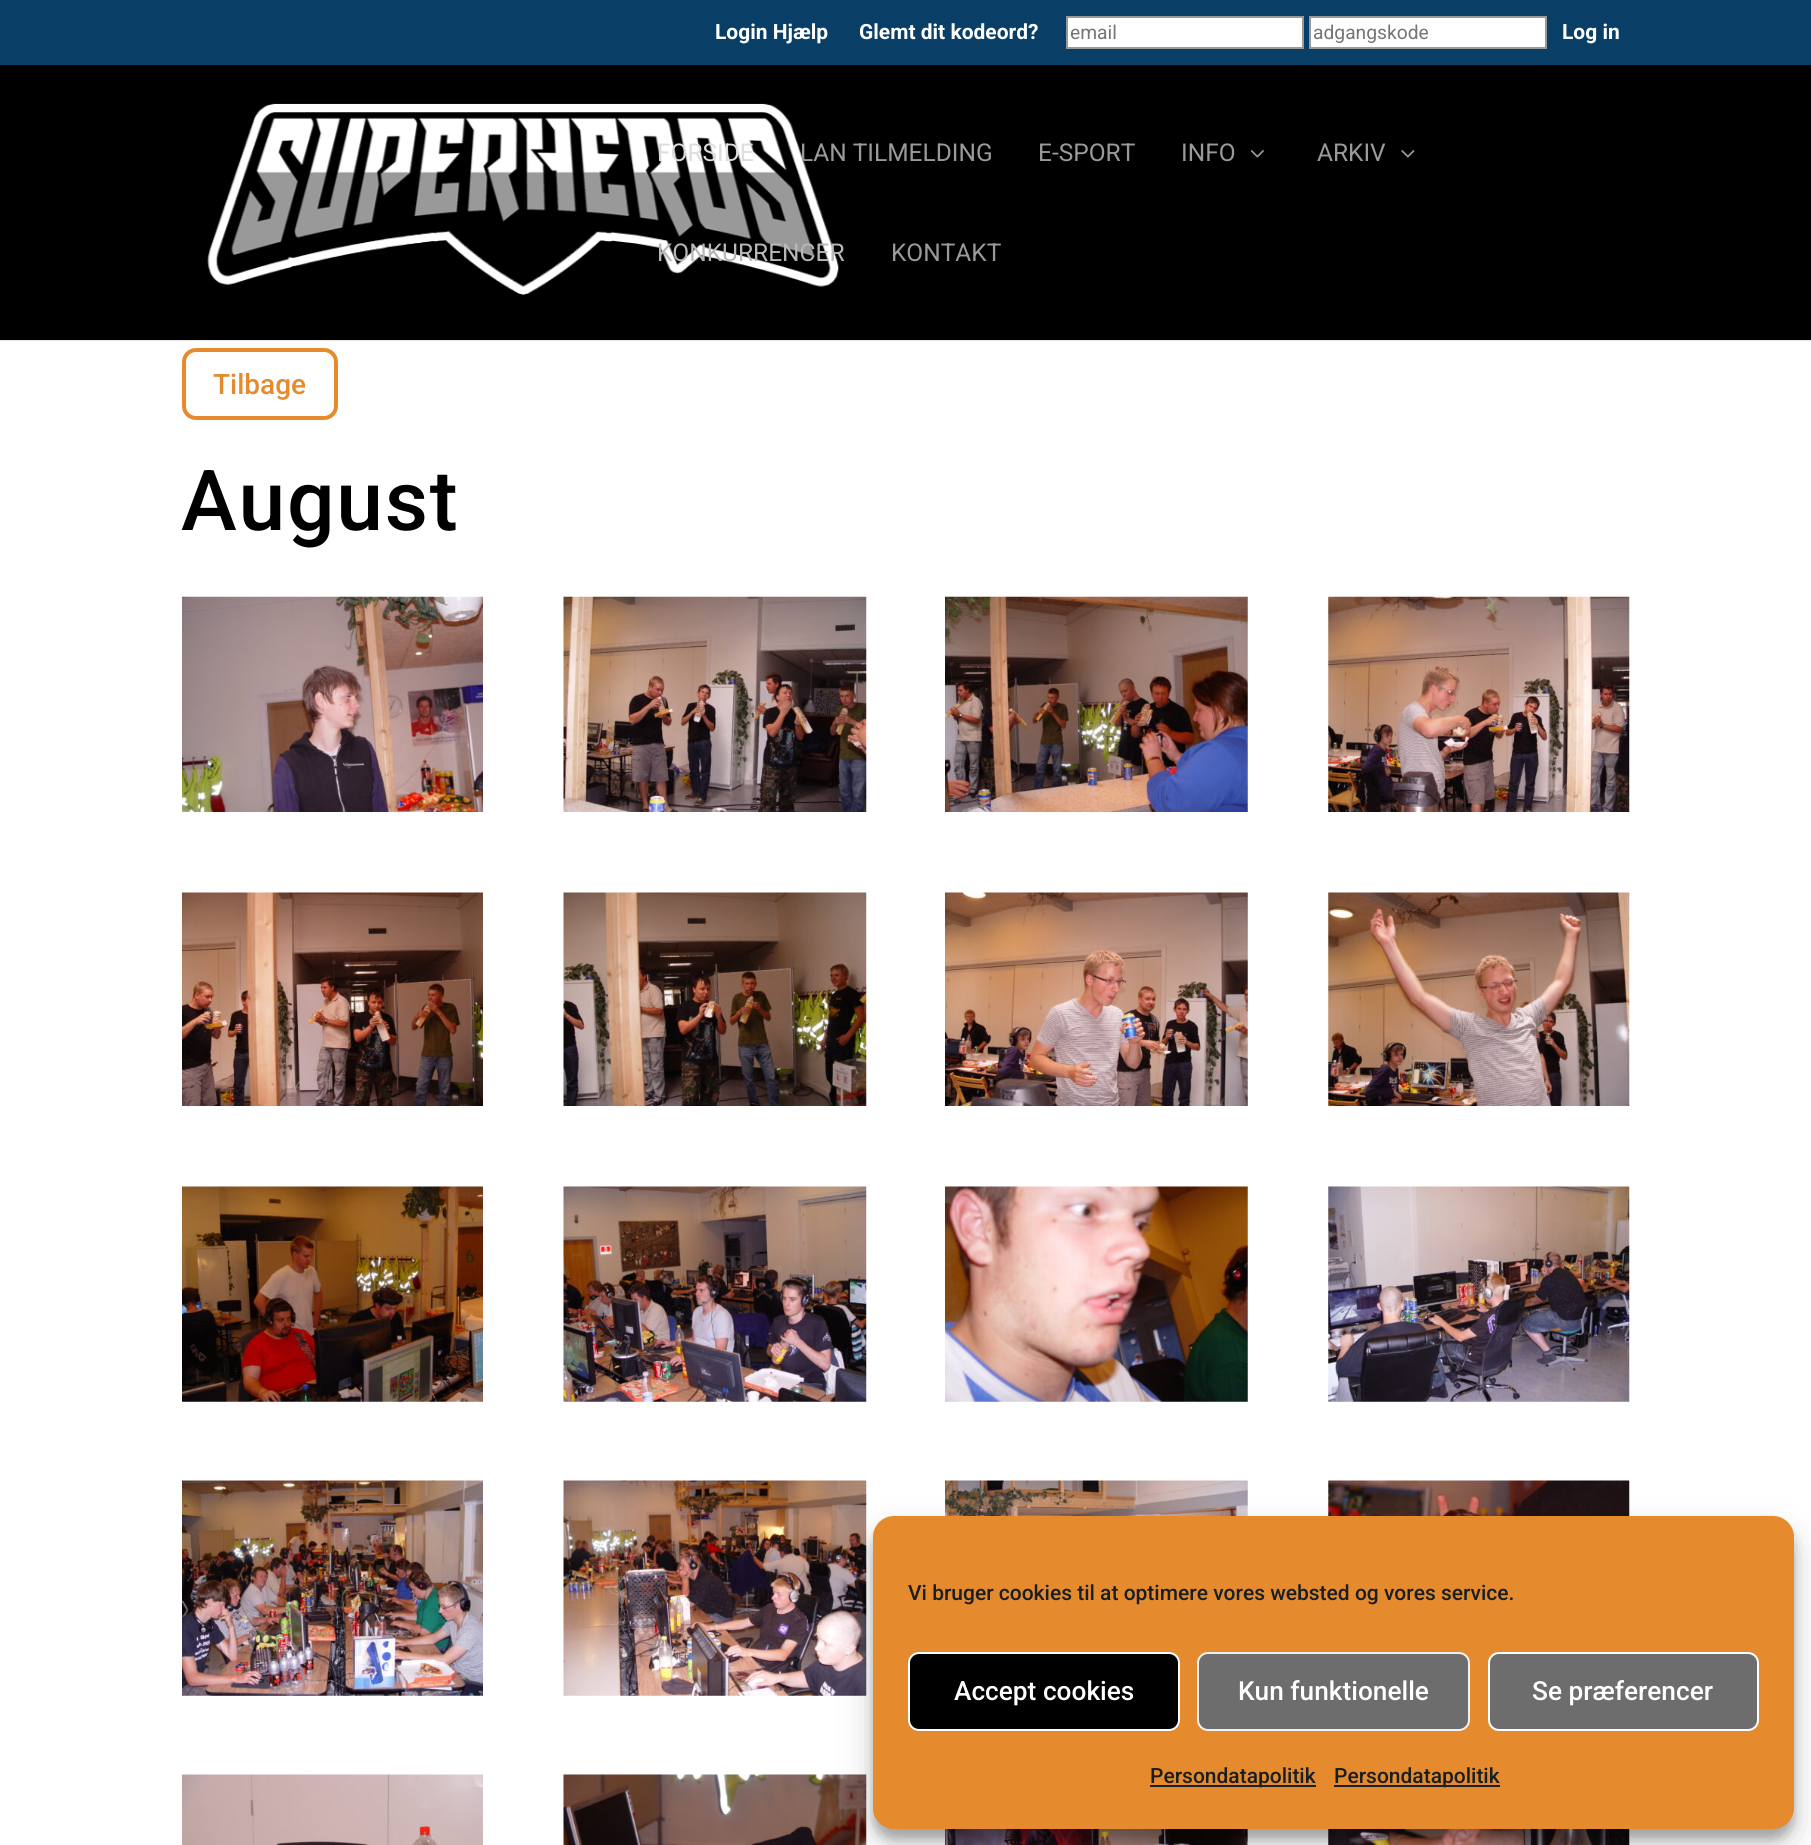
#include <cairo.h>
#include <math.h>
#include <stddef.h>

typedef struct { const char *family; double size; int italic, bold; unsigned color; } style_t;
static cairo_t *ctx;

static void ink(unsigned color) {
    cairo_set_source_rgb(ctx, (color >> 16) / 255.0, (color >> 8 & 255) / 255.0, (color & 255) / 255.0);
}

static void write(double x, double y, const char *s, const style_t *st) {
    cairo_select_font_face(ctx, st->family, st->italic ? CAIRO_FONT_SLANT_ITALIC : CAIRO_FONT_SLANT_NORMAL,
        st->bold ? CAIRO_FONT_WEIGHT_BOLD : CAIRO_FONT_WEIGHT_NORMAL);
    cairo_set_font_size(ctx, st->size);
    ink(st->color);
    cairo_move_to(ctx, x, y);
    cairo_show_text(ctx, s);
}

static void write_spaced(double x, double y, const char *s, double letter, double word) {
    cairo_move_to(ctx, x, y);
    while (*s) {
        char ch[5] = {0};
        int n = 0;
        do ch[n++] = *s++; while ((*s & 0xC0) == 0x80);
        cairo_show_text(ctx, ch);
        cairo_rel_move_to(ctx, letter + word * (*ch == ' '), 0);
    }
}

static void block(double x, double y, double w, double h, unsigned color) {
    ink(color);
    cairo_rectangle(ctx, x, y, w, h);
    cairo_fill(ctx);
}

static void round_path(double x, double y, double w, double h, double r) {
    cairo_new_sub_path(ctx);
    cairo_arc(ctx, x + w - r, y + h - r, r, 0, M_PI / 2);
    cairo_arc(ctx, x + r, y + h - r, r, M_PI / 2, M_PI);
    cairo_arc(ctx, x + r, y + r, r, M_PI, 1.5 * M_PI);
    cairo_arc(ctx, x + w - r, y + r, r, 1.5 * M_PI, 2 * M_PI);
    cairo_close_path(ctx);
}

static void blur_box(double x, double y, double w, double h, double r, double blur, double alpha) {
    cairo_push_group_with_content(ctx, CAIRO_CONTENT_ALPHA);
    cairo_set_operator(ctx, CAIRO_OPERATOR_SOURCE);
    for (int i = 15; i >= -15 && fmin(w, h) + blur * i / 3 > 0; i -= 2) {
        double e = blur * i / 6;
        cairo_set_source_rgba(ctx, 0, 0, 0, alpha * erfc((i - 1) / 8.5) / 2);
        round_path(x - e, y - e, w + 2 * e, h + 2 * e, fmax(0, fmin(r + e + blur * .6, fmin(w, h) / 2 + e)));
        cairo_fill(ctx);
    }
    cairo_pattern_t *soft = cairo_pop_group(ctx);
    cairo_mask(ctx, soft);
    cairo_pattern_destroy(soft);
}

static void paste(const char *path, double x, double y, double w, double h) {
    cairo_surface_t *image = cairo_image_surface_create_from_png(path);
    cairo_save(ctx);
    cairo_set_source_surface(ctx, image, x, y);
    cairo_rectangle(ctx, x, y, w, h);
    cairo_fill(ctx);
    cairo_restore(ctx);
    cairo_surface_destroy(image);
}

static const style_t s1 = {"Roboto", 21, 0, 1, 0xffffff};
static const style_t s2 = {"Roboto", 19.25, 0, 0, 0x757575};
static const style_t s3 = {"Roboto", 24.5, 0, 0, 0xdddddd};
static const style_t s4 = {"Roboto", 24.5, 0, 0, 0x9a9a9a};
static const style_t s5 = {"Roboto", 24.5, 0, 0, 0xb8b8b8};
static const style_t s6 = {"Roboto Medium", 28, 0, 0, 0xe58b2d};
static const style_t s7 = {"Roboto Medium", 21, 0, 0, 0x191e23};
static const style_t s8 = {"Roboto Medium", 26.25, 0, 0, 0xffffff};

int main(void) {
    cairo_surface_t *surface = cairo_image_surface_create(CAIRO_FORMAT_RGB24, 1811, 1845);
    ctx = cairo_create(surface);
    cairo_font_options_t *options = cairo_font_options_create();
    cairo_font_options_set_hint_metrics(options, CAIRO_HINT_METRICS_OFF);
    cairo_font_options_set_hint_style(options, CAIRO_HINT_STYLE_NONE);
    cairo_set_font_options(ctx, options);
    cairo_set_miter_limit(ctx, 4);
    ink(0xffffff);
    cairo_paint(ctx);
    block(0, 0, 1811, 65, 0x093f66);
    write(715, 39, "Login Hjælp", &s1);
    write(859, 39, "Glemt dit kodeord?", &s1);
    cairo_rectangle(ctx, 1067, 17, 236, 31);
    cairo_fill_preserve(ctx);
    ink(0x999999);
    cairo_stroke(ctx);
    write(1070, 39, "email", &s2);
    ink(0xffffff);
    cairo_rectangle(ctx, 1310, 17, 236, 31);
    cairo_fill_preserve(ctx);
    ink(0x999999);
    cairo_stroke(ctx);
    write(1313, 39, "adgangskode", &s2);
    write(1562, 39, "Log in", &s1);
    block(0, 340, 1811, 1, 0xe6e6e6);
    block(0, 65, 1811, 275, 0x000000);
    paste("pic1.png", 207, 103, 633, 192);
    write(657, 161, "FORSIDE", &s3);
    write(800, 161, "LAN TILMELDING", &s4);
    write(1038, 161, "E-SPORT", &s4);
    write(1181, 161, "INFO", &s4);
    paste("pic2.png", 1250, 150, 14, 8);
    write(1317, 161, "ARKIV", &s4);
    paste("pic3.png", 1401, 150, 14, 8);
    write(657, 261, "KONKURRENCER", &s5);
    write(891, 261, "KONTAKT", &s4);
    round_path(184, 350, 152, 68, 12);
    ink(0xe58b2d);
    cairo_set_line_width(ctx, 4);
    cairo_stroke(ctx);
    write(213, 394, "Tilbage", &s6);
    cairo_set_font_size(ctx, 84);
    ink(0x000000);
    write_spaced(181, 530, "August", 1.75, 0);
    paste("pic4.png", 182, 596, 301, 216);
    paste("pic5.png", 563, 596, 304, 216);
    paste("pic6.png", 945, 596, 303, 216);
    paste("pic7.png", 1328, 596, 302, 216);
    paste("pic8.png", 182, 892, 301, 214);
    paste("pic9.png", 563, 892, 304, 214);
    paste("pic10.png", 945, 892, 303, 214);
    paste("pic11.png", 1328, 892, 302, 214);
    paste("pic12.png", 182, 1186, 301, 216);
    paste("pic13.png", 563, 1186, 304, 216);
    paste("pic14.png", 945, 1186, 303, 216);
    paste("pic15.png", 1328, 1186, 302, 216);
    paste("pic16.png", 182, 1480, 301, 216);
    paste("pic17.png", 563, 1480, 304, 216);
    paste("pic18.png", 945, 1480, 303, 36);
    paste("pic19.png", 1328, 1480, 302, 36);
    paste("pic20.png", 182, 1774, 301, 71);
    paste("pic21.png", 563, 1774, 304, 71);
    paste("pic22.png", 945, 1829, 303, 16);
    paste("pic23.png", 1328, 1829, 302, 16);
    ink(0x000000);
    blur_box(873, 1526, 921, 313, 21, 5, 0.23);
    blur_box(873, 1533, 921, 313, 21, 17.5, 0.19);
    ink(0xe58b2d);
    round_path(873, 1516, 921, 313, 21);
    cairo_fill(ctx);
    write(908, 1600, "Vi bruger cookies til at optimere vores websted og vores service.", &s7);
    ink(0x000000);
    round_path(909, 1653, 270, 77, 10);
    cairo_fill_preserve(ctx);
    ink(0xffffff);
    cairo_set_line_width(ctx, 2);
    cairo_stroke(ctx);
    write(954, 1700, "Accept cookies", &s8);
    ink(0x6d6d6d);
    round_path(1198, 1653, 271, 77, 10);
    cairo_fill_preserve(ctx);
    ink(0xf1f1f1);
    cairo_stroke(ctx);
    write(1238, 1700, "Kun funktionelle", &s8);
    ink(0x6d6d6d);
    round_path(1489, 1653, 269, 77, 10);
    cairo_fill_preserve(ctx);
    ink(0xffffff);
    cairo_stroke(ctx);
    write(1532, 1700, "Se præferencer", &s8);
    block(1150, 1785, 166, 2, 0x191e23);
    write(1150, 1783, "Persondatapolitik", &s7);
    block(1334, 1785, 166, 2, 0x191e23);
    write(1334, 1783, "Persondatapolitik", &s7);
    cairo_surface_write_to_png(surface, "screenshot.png");
    cairo_font_options_destroy(options);
    cairo_destroy(ctx);
    cairo_surface_destroy(surface);
    return 0;
}
